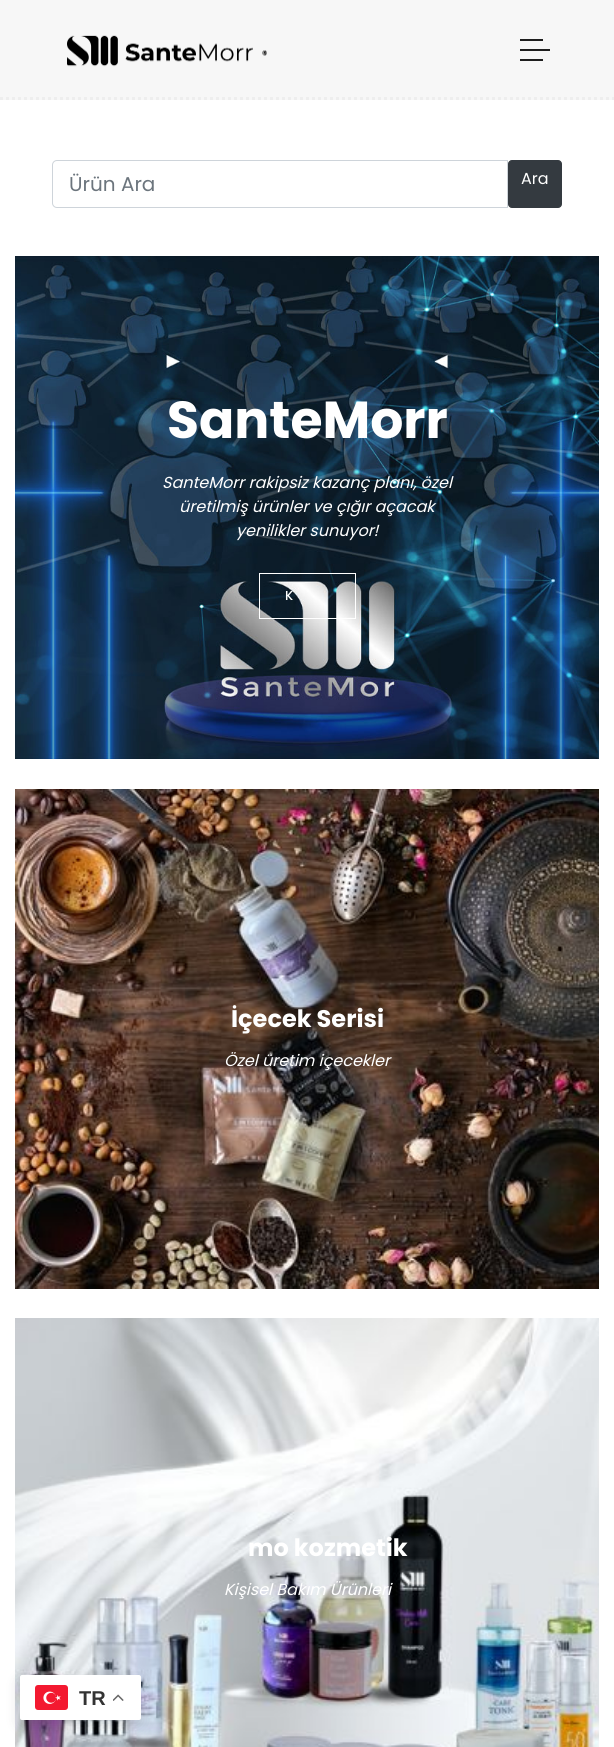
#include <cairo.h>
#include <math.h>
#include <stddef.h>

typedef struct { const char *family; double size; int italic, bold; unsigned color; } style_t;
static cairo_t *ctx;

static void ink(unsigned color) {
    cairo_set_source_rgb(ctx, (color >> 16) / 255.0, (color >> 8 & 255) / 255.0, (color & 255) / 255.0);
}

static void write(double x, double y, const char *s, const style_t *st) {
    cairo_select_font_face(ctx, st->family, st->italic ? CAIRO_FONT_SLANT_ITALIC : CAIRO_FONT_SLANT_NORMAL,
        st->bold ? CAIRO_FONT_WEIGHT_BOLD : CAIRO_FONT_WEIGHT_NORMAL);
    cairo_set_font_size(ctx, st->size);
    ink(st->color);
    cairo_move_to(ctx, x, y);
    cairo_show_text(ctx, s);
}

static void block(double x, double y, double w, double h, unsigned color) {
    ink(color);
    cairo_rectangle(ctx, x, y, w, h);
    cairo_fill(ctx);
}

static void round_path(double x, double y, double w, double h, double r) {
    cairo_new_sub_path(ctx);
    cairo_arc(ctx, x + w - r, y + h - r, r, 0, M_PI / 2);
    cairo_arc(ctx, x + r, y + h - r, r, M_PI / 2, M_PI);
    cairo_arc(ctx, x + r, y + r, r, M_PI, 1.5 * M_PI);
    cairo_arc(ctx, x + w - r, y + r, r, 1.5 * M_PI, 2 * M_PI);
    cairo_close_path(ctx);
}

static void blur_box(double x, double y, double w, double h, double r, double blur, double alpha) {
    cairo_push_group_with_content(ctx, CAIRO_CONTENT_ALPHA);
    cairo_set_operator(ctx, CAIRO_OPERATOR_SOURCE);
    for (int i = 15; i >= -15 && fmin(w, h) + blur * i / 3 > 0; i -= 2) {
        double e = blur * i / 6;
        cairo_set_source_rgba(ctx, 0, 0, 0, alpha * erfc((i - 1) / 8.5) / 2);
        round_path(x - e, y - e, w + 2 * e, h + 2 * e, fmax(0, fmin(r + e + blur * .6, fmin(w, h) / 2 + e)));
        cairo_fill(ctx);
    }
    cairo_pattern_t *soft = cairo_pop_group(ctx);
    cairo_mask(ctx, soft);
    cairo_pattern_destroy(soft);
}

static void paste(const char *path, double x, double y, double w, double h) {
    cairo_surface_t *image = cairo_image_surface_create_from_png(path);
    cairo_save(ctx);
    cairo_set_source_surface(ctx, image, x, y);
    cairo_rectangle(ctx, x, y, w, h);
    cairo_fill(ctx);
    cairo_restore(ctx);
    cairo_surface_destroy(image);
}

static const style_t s1 = {"Poppins", 20, 0, 0, 0x6c757d};
static const style_t s2 = {"Poppins", 16, 0, 0, 0xffffff};
static const style_t s3 = {"Poppins", 52, 0, 1, 0xffffff};
static const style_t s4 = {"Poppins", 16, 1, 0, 0xffffff};
static const style_t s5 = {"Poppins Medium", 13, 0, 0, 0xffffff};
static const style_t s6 = {"Poppins", 24, 0, 1, 0xffffff};
static const style_t s7 = {"Liberation Sans", 20, 0, 1, 0x333333};

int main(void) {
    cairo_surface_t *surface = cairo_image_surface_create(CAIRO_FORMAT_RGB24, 614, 1747);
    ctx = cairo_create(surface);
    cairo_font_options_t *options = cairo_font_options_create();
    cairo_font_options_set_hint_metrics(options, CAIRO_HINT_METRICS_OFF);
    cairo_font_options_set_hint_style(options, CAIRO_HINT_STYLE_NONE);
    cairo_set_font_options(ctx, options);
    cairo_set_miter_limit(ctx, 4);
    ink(0xffffff);
    cairo_paint(ctx);
    block(0, 0, 614, 100, 0xf7f7f7);
    cairo_new_path(ctx);
    cairo_move_to(ctx, 0, 98.5);
    cairo_line_to(ctx, 614, 98.5);
    ink(0xeeeeee);
    cairo_set_line_width(ctx, 3);
    cairo_set_dash(ctx, (double[]){3, 3}, 2, 0);
    cairo_stroke(ctx);
    paste("pic1.png", 67, 35, 200, 32);
    block(520, 49, 30, 2, 0x1e1e1e);
    block(520, 39, 23, 2, 0x1e1e1e);
    block(520, 59, 23, 2, 0x1e1e1e);
    cairo_new_path(ctx);
    cairo_move_to(ctx, 57, 160.5);
    cairo_line_to(ctx, 507.5, 160.5);
    cairo_line_to(ctx, 507.5, 207.5);
    cairo_line_to(ctx, 57, 207.5);
    cairo_curve_to(ctx, 54.5, 207.5, 52.5, 205.5, 52.5, 203);
    cairo_line_to(ctx, 52.5, 165);
    cairo_curve_to(ctx, 52.5, 162.5, 54.5, 160.5, 57, 160.5);
    cairo_close_path(ctx);
    ink(0xced4da);
    cairo_set_line_width(ctx, 1);
    cairo_set_dash(ctx, NULL, 0, 0);
    cairo_stroke(ctx);
    write(69, 191, "Ürün Ara", &s1);
    ink(0x343a40);
    round_path(508.5, 160.5, 53, 47, 3.5);
    cairo_fill_preserve(ctx);
    cairo_stroke(ctx);
    write(521, 184, "Ara", &s2);
    paste("pic2.png", 15, 256, 584, 503);
    write(167, 438, "SanteMorr", &s3);
    write(162, 488, "SanteMorr rakipsiz kazanç planı, özel", &s4);
    write(179, 512, "üretilmiş ürünler ve çığır açacak", &s4);
    write(236, 536, "yenilikler sunuyor!", &s4);
    cairo_rectangle(ctx, 259.5, 573.5, 96, 45);
    cairo_stroke(ctx);
    write(285, 600, "K", &s5);
    paste("pic3.png", 15, 789, 584, 500);
    write(231, 1027, "İçecek Serisi", &s6);
    write(224, 1066, "Özel üretim içecekler", &s4);
    paste("pic4.png", 15, 1318, 584, 429);
    write(248, 1556, "mo kozmetik", &s6);
    write(224, 1595, "Kişisel Bakım Ürünleri", &s4);
    ink(0x000000);
    blur_box(20, 1680, 121, 45, 2, 7.5, 0.15);
    ink(0xffffff);
    round_path(20, 1675, 121, 45, 2);
    cairo_fill(ctx);
    paste("pic5.png", 35, 1685, 33, 25);
    write(79, 1705, "TR", &s7);
    paste("pic6.png", 113, 1694, 11, 7);
    cairo_surface_write_to_png(surface, "screenshot.png");
    cairo_font_options_destroy(options);
    cairo_destroy(ctx);
    cairo_surface_destroy(surface);
    return 0;
}
